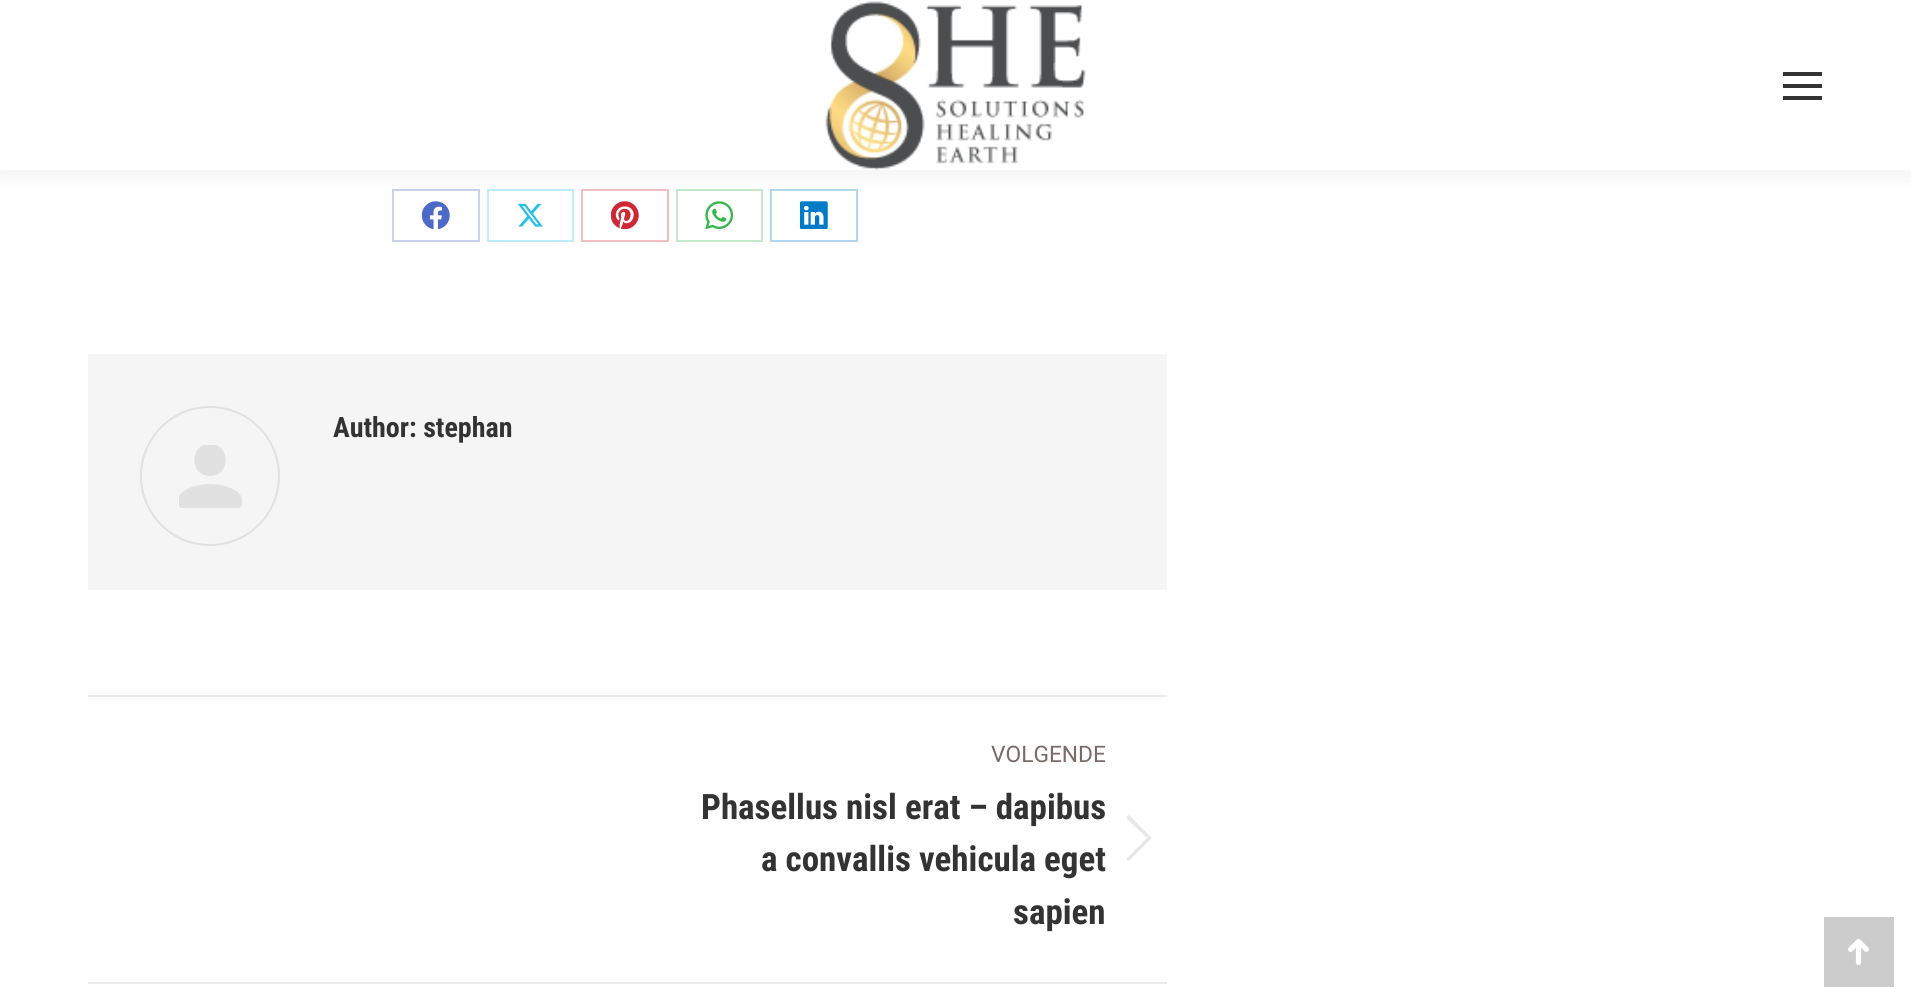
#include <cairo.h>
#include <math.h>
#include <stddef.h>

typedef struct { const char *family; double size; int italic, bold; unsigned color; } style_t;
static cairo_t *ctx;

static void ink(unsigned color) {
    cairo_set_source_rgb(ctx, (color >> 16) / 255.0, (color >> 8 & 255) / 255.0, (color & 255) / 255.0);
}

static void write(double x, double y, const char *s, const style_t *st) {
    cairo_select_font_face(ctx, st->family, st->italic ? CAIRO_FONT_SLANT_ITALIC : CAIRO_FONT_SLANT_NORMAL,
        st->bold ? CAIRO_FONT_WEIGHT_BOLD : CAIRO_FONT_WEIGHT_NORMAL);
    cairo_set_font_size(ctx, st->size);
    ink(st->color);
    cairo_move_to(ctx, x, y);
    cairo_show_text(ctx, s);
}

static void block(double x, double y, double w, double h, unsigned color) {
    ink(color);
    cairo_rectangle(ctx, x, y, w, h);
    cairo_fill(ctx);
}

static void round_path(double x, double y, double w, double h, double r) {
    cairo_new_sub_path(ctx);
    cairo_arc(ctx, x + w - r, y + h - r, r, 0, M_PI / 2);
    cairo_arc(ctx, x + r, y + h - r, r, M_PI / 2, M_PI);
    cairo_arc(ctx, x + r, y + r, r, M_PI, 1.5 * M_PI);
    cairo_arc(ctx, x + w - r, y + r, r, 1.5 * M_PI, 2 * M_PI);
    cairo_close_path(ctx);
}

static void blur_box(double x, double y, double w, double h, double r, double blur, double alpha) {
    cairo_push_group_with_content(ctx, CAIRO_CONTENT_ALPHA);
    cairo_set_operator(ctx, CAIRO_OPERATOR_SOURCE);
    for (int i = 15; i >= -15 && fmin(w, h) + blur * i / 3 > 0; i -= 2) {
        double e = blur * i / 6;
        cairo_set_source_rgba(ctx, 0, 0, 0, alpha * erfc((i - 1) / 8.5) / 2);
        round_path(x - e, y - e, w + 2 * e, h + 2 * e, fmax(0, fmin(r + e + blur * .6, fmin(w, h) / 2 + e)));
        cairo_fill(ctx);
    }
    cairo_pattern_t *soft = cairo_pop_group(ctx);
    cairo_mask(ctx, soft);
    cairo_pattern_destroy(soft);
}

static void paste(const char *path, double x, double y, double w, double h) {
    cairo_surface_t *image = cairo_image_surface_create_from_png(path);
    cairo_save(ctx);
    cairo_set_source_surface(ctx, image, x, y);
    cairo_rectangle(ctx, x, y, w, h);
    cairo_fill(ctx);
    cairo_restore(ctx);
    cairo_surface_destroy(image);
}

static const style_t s1 = {"Roboto Condensed", 28, 0, 1, 0x333333};
static const style_t s2 = {"Roboto", 22.75, 0, 0, 0x7a6a6a};
static const style_t s3 = {"Roboto Condensed", 35, 0, 1, 0x333333};

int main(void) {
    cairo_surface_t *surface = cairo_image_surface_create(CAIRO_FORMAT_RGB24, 1911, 1003);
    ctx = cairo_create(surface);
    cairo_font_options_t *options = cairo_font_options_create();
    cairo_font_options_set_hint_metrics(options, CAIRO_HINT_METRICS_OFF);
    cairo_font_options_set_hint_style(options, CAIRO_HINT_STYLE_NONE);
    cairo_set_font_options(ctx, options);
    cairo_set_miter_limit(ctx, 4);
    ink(0xffffff);
    cairo_paint(ctx);
    cairo_rectangle(ctx, 393, 190, 86, 51);
    ink(0xc9d2ee);
    cairo_stroke(ctx);
    paste("pic2.png", 422, 201, 28, 28);
    cairo_rectangle(ctx, 488, 190, 85, 51);
    ink(0xbfecf9);
    cairo_stroke(ctx);
    paste("pic3.png", 517, 203, 26, 24);
    cairo_rectangle(ctx, 582, 190, 86, 51);
    ink(0xf1bfc2);
    cairo_stroke(ctx);
    paste("pic4.png", 611, 201, 28, 28);
    cairo_rectangle(ctx, 677, 190, 85, 51);
    ink(0xc3e9ca);
    cairo_stroke(ctx);
    paste("pic5.png", 705, 201, 28, 28);
    cairo_rectangle(ctx, 771, 190, 86, 51);
    ink(0xb3d7ee);
    cairo_stroke(ctx);
    paste("pic6.png", 800, 201, 28, 28);
    ink(0x000000);
    blur_box(-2, -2, 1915, 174, 0, 13, 0.07);
    block(0, 0, 1911, 170, 0xffffff);
    paste("pic1.png", 825, 1, 261, 169);
    block(1783, 72, 39, 4, 0x333333);
    block(1783, 84, 39, 4, 0x333333);
    block(1783, 96, 39, 4, 0x333333);
    block(88, 354, 1079, 236, 0xf5f5f5);
    cairo_arc(ctx, 210, 476, 69, 0, 2 * M_PI);
    ink(0xe1e1e1);
    cairo_stroke(ctx);
    cairo_save(ctx);
    cairo_rectangle(ctx, 179, 445, 63, 63);
    cairo_clip(ctx);
    cairo_new_path(ctx);
    cairo_move_to(ctx, 210, 476);
    cairo_curve_to(ctx, 231, 476, 231, 444, 210, 444);
    cairo_curve_to(ctx, 189, 444, 189, 476, 210, 476);
    cairo_close_path(ctx);
    cairo_move_to(ctx, 210, 484);
    cairo_curve_to(ctx, 199, 484, 178, 489, 178, 500);
    cairo_line_to(ctx, 178, 504);
    cairo_curve_to(ctx, 178, 506, 180, 508, 182, 508);
    cairo_line_to(ctx, 238, 508);
    cairo_curve_to(ctx, 240, 508, 242, 506, 242, 504);
    cairo_line_to(ctx, 242, 500);
    cairo_curve_to(ctx, 242, 489, 221, 484, 210, 484);
    cairo_close_path(ctx);
    cairo_fill(ctx);
    cairo_restore(ctx);
    write(333, 437, "Author: stephan", &s1);
    block(88, 695, 1079, 2, 0xebebeb);
    block(88, 982, 1079, 2, 0xebebeb);
    write(991, 762, "VOLGENDE", &s2);
    write(701, 819, "Phasellus nisl erat – dapibus", &s3);
    write(761, 871, "a convallis vehicula eget", &s3);
    write(1013, 924, "sapien", &s3);
    ink(0xe7e7e7);
    cairo_new_path(ctx);
    cairo_move_to(ctx, 1127, 816);
    cairo_curve_to(ctx, 1128, 815, 1129, 815, 1130, 816);
    cairo_line_to(ctx, 1151, 837);
    cairo_curve_to(ctx, 1152, 838, 1152, 839, 1151, 839);
    cairo_line_to(ctx, 1130, 860);
    cairo_curve_to(ctx, 1129, 861, 1128, 861, 1127, 860);
    cairo_curve_to(ctx, 1127, 860, 1127, 859, 1127, 858);
    cairo_line_to(ctx, 1147, 838);
    cairo_line_to(ctx, 1127, 819);
    cairo_close_path(ctx);
    cairo_fill(ctx);
    block(1824, 917, 70, 70, 0xcccccc);
    paste("pic7.png", 1848, 938, 21, 28);
    cairo_surface_write_to_png(surface, "screenshot.png");
    cairo_font_options_destroy(options);
    cairo_destroy(ctx);
    cairo_surface_destroy(surface);
    return 0;
}
